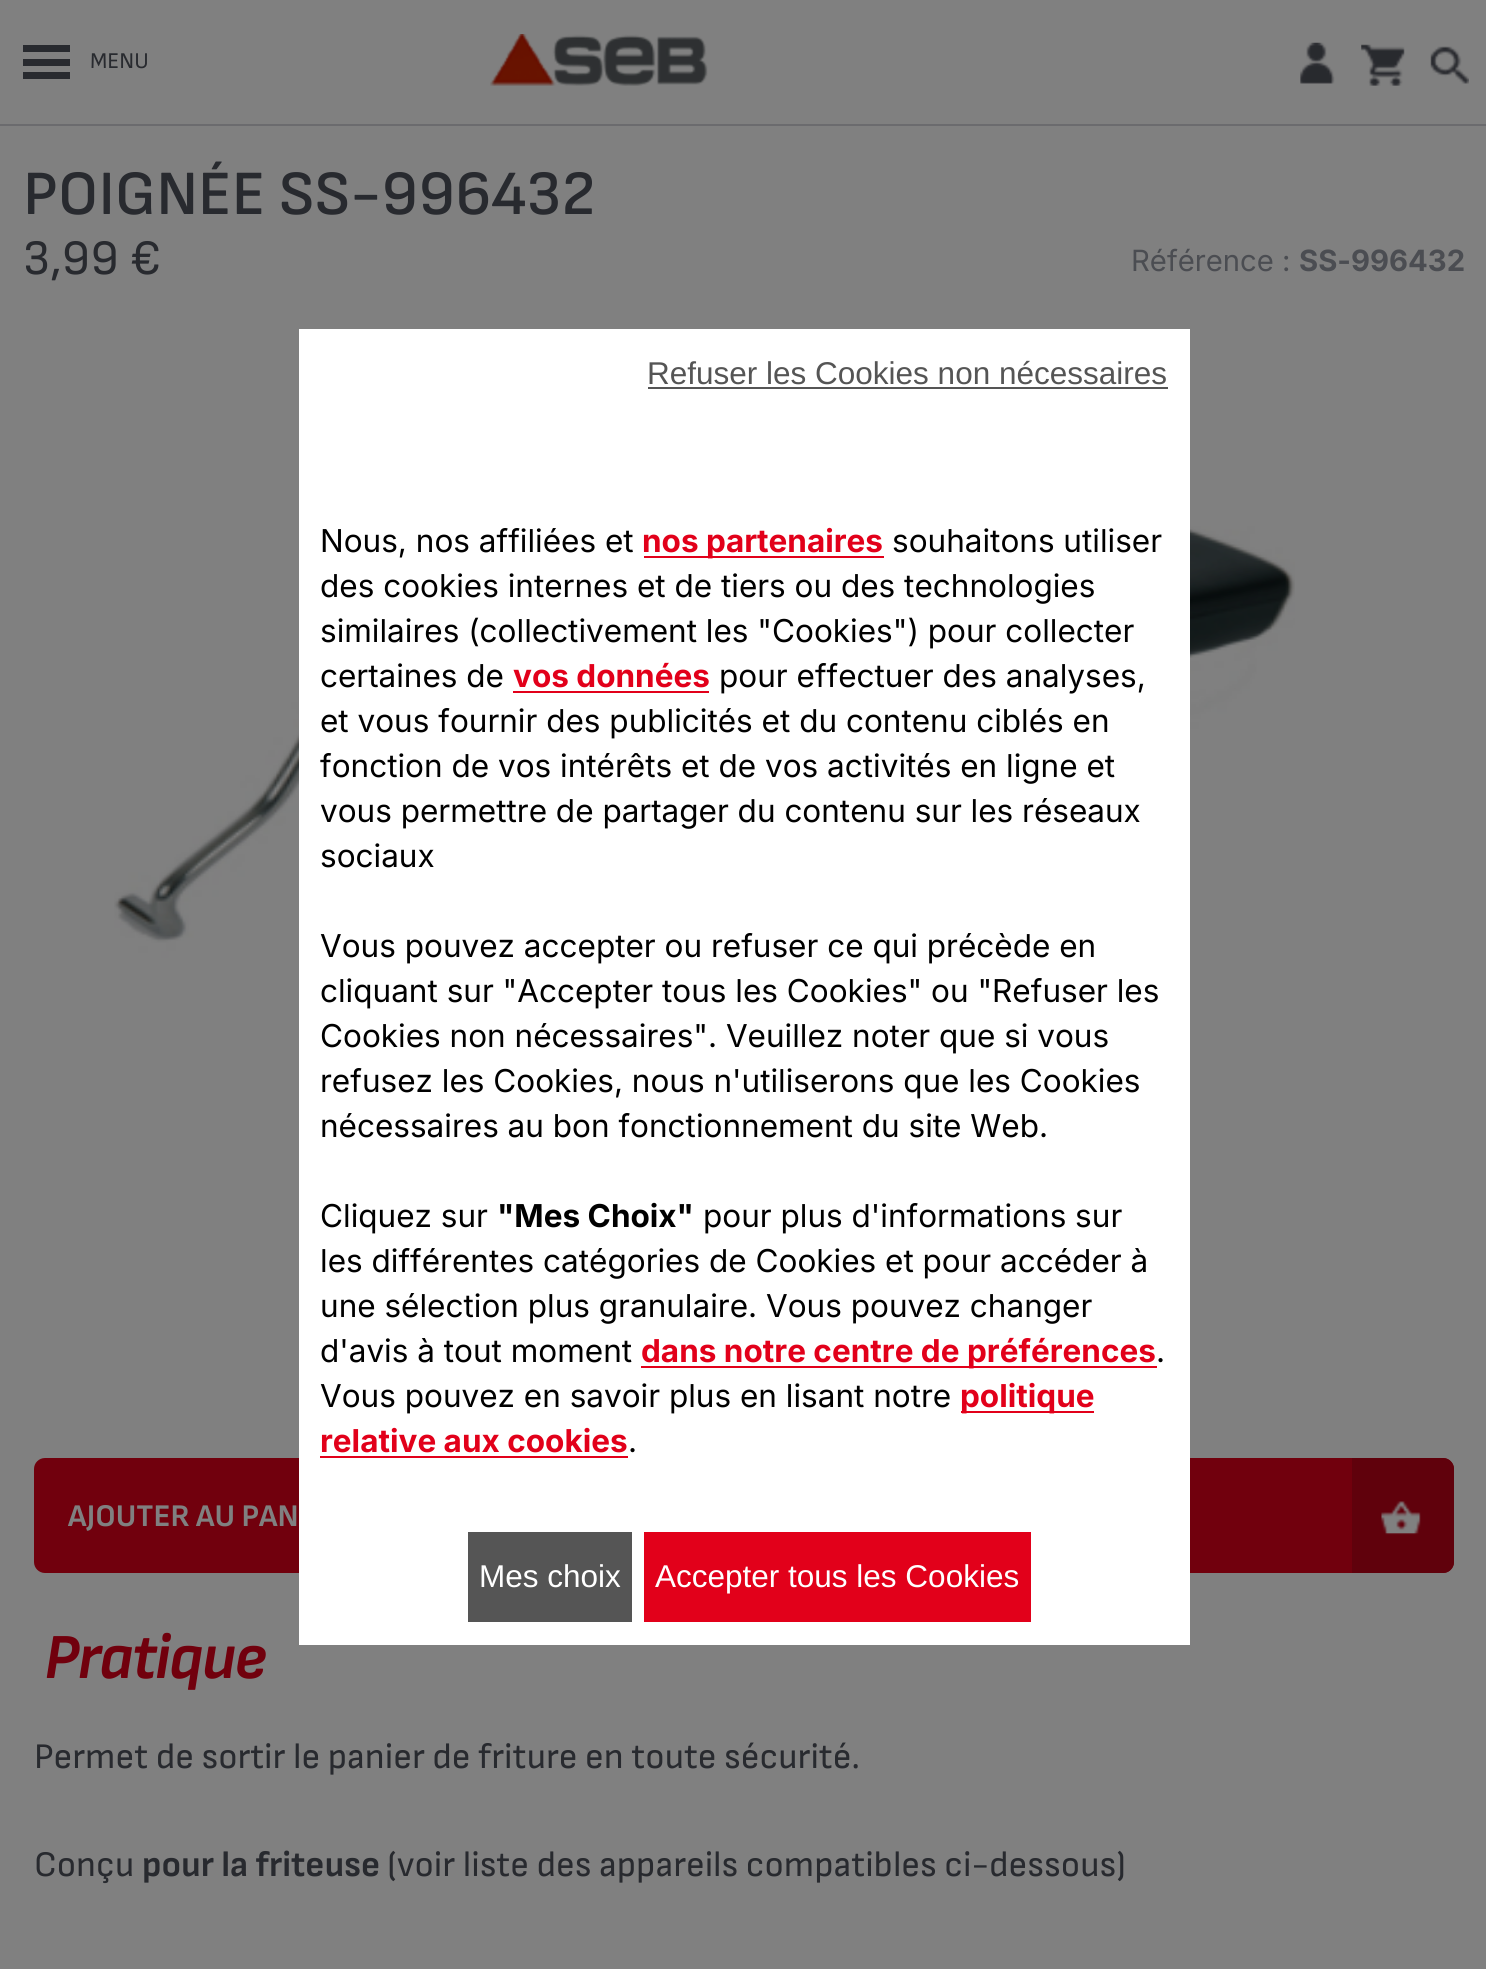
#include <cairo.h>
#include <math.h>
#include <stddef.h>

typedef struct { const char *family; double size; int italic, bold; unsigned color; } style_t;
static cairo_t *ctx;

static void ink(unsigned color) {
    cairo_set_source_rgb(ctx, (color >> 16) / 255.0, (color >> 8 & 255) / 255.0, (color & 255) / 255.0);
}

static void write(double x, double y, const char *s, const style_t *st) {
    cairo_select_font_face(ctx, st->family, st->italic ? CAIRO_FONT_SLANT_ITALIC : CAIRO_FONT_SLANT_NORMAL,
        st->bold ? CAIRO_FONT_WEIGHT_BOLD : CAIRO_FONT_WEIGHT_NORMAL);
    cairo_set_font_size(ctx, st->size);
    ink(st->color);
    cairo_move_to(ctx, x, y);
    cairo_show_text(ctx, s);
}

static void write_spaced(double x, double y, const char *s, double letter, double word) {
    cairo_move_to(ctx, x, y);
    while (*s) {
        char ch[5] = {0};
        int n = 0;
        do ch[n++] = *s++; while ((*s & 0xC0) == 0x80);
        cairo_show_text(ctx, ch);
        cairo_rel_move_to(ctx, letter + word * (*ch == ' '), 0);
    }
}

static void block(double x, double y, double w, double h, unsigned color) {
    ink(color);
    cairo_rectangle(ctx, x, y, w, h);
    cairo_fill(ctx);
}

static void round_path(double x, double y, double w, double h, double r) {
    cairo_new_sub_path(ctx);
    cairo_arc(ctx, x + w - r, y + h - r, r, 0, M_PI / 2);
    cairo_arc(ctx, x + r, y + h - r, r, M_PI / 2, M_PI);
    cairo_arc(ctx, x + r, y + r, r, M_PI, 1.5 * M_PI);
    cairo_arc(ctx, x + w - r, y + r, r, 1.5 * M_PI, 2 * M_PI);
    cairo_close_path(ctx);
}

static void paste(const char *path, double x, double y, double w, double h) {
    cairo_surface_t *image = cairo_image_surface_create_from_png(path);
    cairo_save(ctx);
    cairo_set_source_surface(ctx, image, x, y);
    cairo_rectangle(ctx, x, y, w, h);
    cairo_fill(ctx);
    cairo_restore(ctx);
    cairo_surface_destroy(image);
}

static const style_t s1 = {"Sofia Sans", 22.5, 0, 0, 0x282a2f};
static const style_t s2 = {"Sofia Sans SemiBold", 63, 0, 0, 0x282a2f};
static const style_t s3 = {"Sofia Sans", 49.5, 0, 0, 0x282a2f};
static const style_t s4 = {"Inter", 29.25, 0, 0, 0x4b4d52};
static const style_t s5 = {"Inter", 29.25, 0, 1, 0x4b4d52};
static const style_t s6 = {"Sofia Sans", 31.5, 0, 1, 0x808080};
static const style_t s7 = {"Sofia Sans", 36, 0, 0, 0x282a2f};
static const style_t s8 = {"Sofia Sans", 36, 0, 1, 0x282a2f};
static const style_t s9 = {"Liberation Sans", 31.5, 0, 0, 0x555555};
static const style_t s10 = {"Liberation Sans", 31.5, 0, 0, 0xffffff};
static const style_t s11 = {"Inter", 31.5, 0, 0, 0x000000};
static const style_t s12 = {"Inter", 31.5, 0, 1, 0xe2001a};
static const style_t s13 = {"Inter", 31.5, 0, 1, 0x000000};

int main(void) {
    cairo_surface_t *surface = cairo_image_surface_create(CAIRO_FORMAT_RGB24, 1486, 1969);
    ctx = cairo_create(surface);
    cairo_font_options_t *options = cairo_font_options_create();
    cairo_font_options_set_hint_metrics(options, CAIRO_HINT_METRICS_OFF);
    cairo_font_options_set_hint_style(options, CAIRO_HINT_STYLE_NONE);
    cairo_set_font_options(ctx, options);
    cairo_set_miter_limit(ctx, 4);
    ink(0x808080);
    cairo_paint(ctx);
    block(0, 124, 1486, 2, 0x6b6b6e);
    block(23, 59, 47, 7, 0x282a2f);
    block(23, 45, 47, 7, 0x282a2f);
    block(23, 72, 47, 7, 0x282a2f);
    write(90, 68, "MENU", &s1);
    paste("pic1.png", 490, 34, 218, 52);
    paste("pic2.png", 1300, 42, 35, 42);
    paste("pic3.png", 1361, 44, 44, 42);
    paste("pic4.png", 1430, 46, 39, 38);
    write(23, 214, "POIGNÉE SS-996432", &s2);
    write(23, 274, "3,99 €", &s3);
    write(1131, 271, "Référence :", &s4);
    write(1299, 271, "SS-996432", &s5);
    paste("pic5.png", 114, 524, 1181, 574);
    ink(0x71000d);
    round_path(34, 1458, 1420, 115, 11);
    cairo_fill(ctx);
    ink(0x60010c);
    cairo_new_path(ctx);
    cairo_move_to(ctx, 1352, 1458);
    cairo_line_to(ctx, 1443, 1458);
    cairo_curve_to(ctx, 1449, 1458, 1454, 1463, 1454, 1469);
    cairo_line_to(ctx, 1454, 1562);
    cairo_curve_to(ctx, 1454, 1568, 1449, 1573, 1443, 1573);
    cairo_line_to(ctx, 1352, 1573);
    cairo_close_path(ctx);
    cairo_fill(ctx);
    write(68, 1526, "AJOUTER AU PAN", &s6);
    paste("pic6.png", 1381, 1501, 40, 34);
    cairo_select_font_face(ctx, "Sofia Sans", CAIRO_FONT_SLANT_ITALIC, CAIRO_FONT_WEIGHT_BOLD);
    cairo_set_font_size(ctx, 64);
    ink(0x71000d);
    write_spaced(44, 1678, "Pratique", -1.5, 0);
    write(34, 1768, "Permet de sortir le panier de friture en toute sécurité.", &s7);
    write(34, 1876, "Conçu", &s7);
    write(142, 1876, "pour la friteuse", &s8);
    write(387, 1876, "(voir liste des appareils compatibles ci-dessous)", &s7);
    block(299, 329, 891, 1316, 0xffffff);
    write(647, 384, "Refuser les Cookies non nécessaires", &s9);
    block(648, 387, 520, 2, 0x555555);
    block(468, 1532, 164, 90, 0x555555);
    write(479, 1587, "Mes choix", &s10);
    block(644, 1532, 387, 90, 0xe2001a);
    write(655, 1587, "Accepter tous les Cookies", &s10);
    write(320, 552, "Nous, nos affiliées et", &s11);
    block(644, 556, 240, 2, 0xe2001a);
    write(642, 552, "nos partenaires", &s12);
    write(892, 552, "souhaitons utiliser", &s11);
    write(320, 597, "des cookies internes et de tiers ou des technologies", &s11);
    write(320, 642, "similaires (collectivement les \"Cookies\") pour collecter", &s11);
    write(320, 687, "certaines de", &s11);
    write(513, 687, "vos données", &s12);
    block(513, 691, 196, 2, 0xe2001a);
    write(719, 687, "pour effectuer des analyses,", &s11);
    write(320, 732, "et vous fournir des publicités et du contenu ciblés en", &s11);
    write(320, 777, "fonction de vos intérêts et de vos activités en ligne et", &s11);
    write(320, 822, "vous permettre de partager du contenu sur les réseaux", &s11);
    write(320, 867, "sociaux", &s11);
    write(320, 957, "Vous pouvez accepter ou refuser ce qui précède en", &s11);
    write(320, 1002, "cliquant sur \"Accepter tous les Cookies\" ou \"Refuser les", &s11);
    write(320, 1047, "Cookies non nécessaires\". Veuillez noter que si vous", &s11);
    write(320, 1092, "refusez les Cookies, nous n'utiliserons que les Cookies", &s11);
    write(320, 1137, "nécessaires au bon fonctionnement du site Web.", &s11);
    write(320, 1227, "Cliquez sur", &s11);
    write(497, 1227, "\"Mes Choix\"", &s13);
    write(703, 1227, "pour plus d'informations sur", &s11);
    write(320, 1272, "les différentes catégories de Cookies et pour accéder à", &s11);
    write(320, 1317, "une sélection plus granulaire. Vous pouvez changer", &s11);
    write(320, 1362, "d'avis à tout moment", &s11);
    block(641, 1366, 516, 2, 0xe2001a);
    write(641, 1362, "dans notre centre de préférences", &s12);
    write(1156, 1362, ".", &s11);
    write(320, 1407, "Vous pouvez en savoir plus en lisant notre", &s11);
    block(961, 1411, 133, 2, 0xe2001a);
    write(960, 1407, "politique", &s12);
    write(320, 1452, "relative aux cookies", &s12);
    block(320, 1456, 308, 2, 0xe2001a);
    write(628, 1452, ".", &s11);
    cairo_surface_write_to_png(surface, "screenshot.png");
    cairo_font_options_destroy(options);
    cairo_destroy(ctx);
    cairo_surface_destroy(surface);
    return 0;
}
